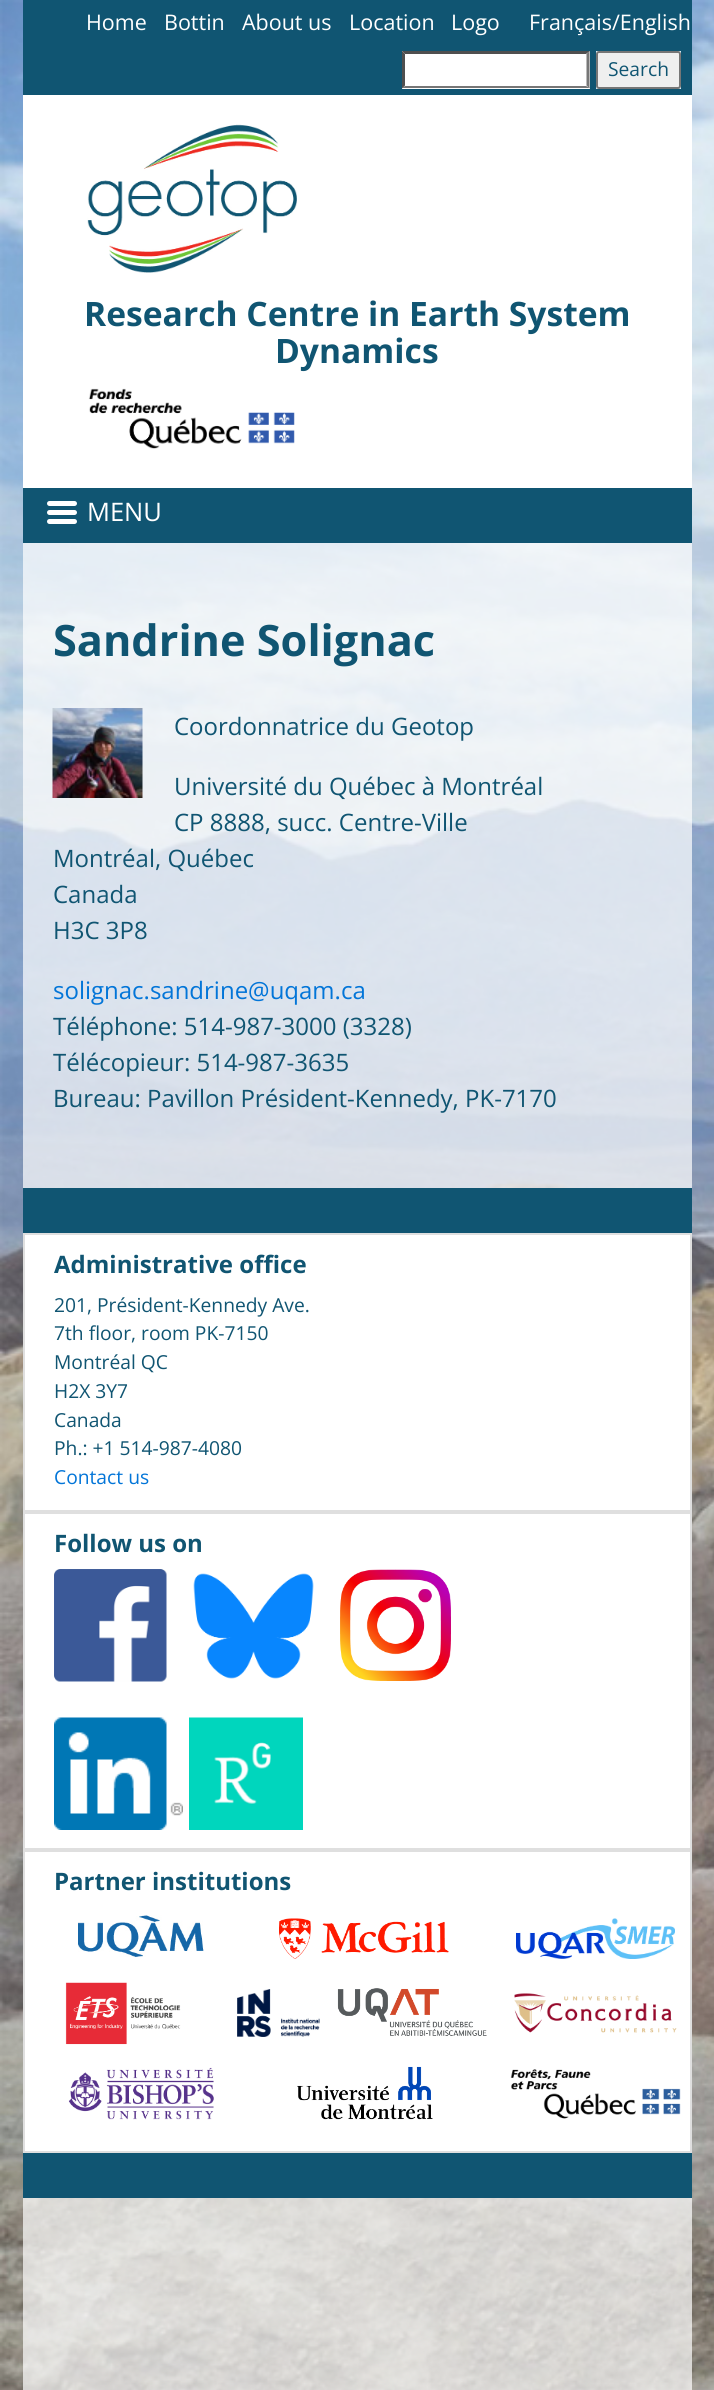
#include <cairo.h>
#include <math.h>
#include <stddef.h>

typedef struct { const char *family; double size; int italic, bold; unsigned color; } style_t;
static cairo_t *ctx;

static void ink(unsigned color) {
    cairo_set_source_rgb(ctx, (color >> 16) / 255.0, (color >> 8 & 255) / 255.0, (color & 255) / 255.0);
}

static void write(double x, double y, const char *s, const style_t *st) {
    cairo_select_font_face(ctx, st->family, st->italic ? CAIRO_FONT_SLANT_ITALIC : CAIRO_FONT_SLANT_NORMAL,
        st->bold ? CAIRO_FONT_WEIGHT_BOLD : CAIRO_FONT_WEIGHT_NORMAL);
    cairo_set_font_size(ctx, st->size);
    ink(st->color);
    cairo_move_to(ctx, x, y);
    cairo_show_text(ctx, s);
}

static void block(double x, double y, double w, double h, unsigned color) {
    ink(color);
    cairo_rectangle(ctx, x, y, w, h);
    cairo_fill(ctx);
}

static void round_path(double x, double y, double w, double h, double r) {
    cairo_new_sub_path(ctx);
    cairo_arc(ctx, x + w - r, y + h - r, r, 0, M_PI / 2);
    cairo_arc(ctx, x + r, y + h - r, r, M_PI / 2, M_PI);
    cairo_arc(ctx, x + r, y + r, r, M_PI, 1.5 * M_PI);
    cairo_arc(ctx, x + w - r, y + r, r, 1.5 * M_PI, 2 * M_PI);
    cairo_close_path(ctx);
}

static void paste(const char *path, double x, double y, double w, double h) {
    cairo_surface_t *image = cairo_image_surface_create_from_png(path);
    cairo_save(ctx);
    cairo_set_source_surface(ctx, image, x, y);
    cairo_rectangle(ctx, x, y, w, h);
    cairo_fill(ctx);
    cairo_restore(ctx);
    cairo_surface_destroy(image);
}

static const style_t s1 = {"Open Sans", 21.5, 0, 0, 0xffffff};
static const style_t s2 = {"Open Sans", 19.25, 0, 0, 0x105572};
static const style_t s3 = {"Open Sans", 33.6, 0, 1, 0x105572};
static const style_t s4 = {"Open Sans", 25.5, 0, 0, 0xffffff};
static const style_t s5 = {"Open Sans", 43.25, 0, 1, 0x105572};
static const style_t s6 = {"Open Sans", 24, 0, 0, 0x105572};
static const style_t s7 = {"Open Sans", 24, 0, 0, 0x0275d8};
static const style_t s8 = {"Open Sans", 24, 0, 1, 0x105572};
static const style_t s9 = {"Open Sans", 19.25, 0, 0, 0x0275d8};

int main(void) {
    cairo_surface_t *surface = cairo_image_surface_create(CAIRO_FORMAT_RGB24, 714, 2390);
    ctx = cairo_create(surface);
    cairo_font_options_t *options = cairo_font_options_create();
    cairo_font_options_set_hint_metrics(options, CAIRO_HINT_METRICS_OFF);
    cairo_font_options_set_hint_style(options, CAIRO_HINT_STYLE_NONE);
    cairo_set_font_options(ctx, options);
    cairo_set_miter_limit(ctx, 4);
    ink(0xffffff);
    cairo_paint(ctx);
    paste("pic1.png", 0, 0, 714, 2390);
    block(23, 0, 669, 95, 0x105572);
    write(86, 30, "Home", &s1);
    write(164, 30, "Bottin", &s1);
    write(242, 30, "About us", &s1);
    write(349, 30, "Location", &s1);
    write(451, 30, "Logo", &s1);
    write(529, 30, "Français/English", &s1);
    block(402, 51, 188, 38, 0xffffff);
    ink(0x4f4f4f);
    cairo_new_path(ctx);
    cairo_move_to(ctx, 402, 51);
    cairo_line_to(ctx, 590, 51);
    cairo_line_to(ctx, 586, 54);
    cairo_line_to(ctx, 405, 54);
    cairo_close_path(ctx);
    cairo_fill(ctx);
    ink(0x767676);
    cairo_new_path(ctx);
    cairo_move_to(ctx, 589.5, 51);
    cairo_line_to(ctx, 589.5, 88.5);
    cairo_line_to(ctx, 586.5, 85.5);
    cairo_line_to(ctx, 586.5, 54);
    cairo_close_path(ctx);
    cairo_fill(ctx);
    cairo_new_path(ctx);
    cairo_move_to(ctx, 590, 88);
    cairo_line_to(ctx, 402, 88);
    cairo_line_to(ctx, 405, 86);
    cairo_line_to(ctx, 586, 86);
    cairo_close_path(ctx);
    cairo_fill(ctx);
    ink(0x4f4f4f);
    cairo_new_path(ctx);
    cairo_move_to(ctx, 402, 88.5);
    cairo_line_to(ctx, 402, 51);
    cairo_line_to(ctx, 405, 54);
    cairo_line_to(ctx, 405, 85.5);
    cairo_close_path(ctx);
    cairo_fill(ctx);
    block(596, 51, 85, 38, 0xd9edf7);
    ink(0xefefef);
    round_path(597, 52, 83, 36, 2);
    cairo_fill_preserve(ctx);
    ink(0x767676);
    cairo_stroke(ctx);
    write(608, 76, "Search", &s2);
    block(23, 95, 669, 393, 0xffffff);
    paste("pic2.png", 87, 124, 210, 149);
    write(84, 326, "Research Centre in Earth System", &s3);
    write(275, 363, "Dynamics", &s3);
    paste("pic3.png", 88, 388, 207, 61);
    block(23, 488, 669, 55, 0x105572);
    ink(0xffffff);
    round_path(47, 501, 30, 5, 2.5);
    cairo_fill(ctx);
    write(87, 521, "MENU", &s4);
    round_path(47, 510, 30, 5, 2.5);
    cairo_fill(ctx);
    round_path(47, 519, 30, 5, 2.5);
    cairo_fill(ctx);
    write(53, 656, "Sandrine Solignac", &s5);
    paste("pic4.png", 52, 708, 91, 90);
    write(174, 735, "Coordonnatrice du Geotop", &s6);
    write(174, 795, "Université du Québec à Montréal", &s6);
    write(174, 831, "CP 8888, succ. Centre-Ville", &s6);
    write(53, 867, "Montréal, Québec", &s6);
    write(53, 903, "Canada", &s6);
    write(53, 939, "H3C 3P8", &s6);
    write(53, 999, "solignac.sandrine@uqam.ca", &s7);
    write(53, 1035, "Téléphone: 514-987-3000 (3328)", &s6);
    write(53, 1071, "Télécopieur: 514-987-3635", &s6);
    write(53, 1107, "Bureau: Pavillon Président-Kennedy, PK-7170", &s6);
    block(23, 1188, 669, 1010, 0x105572);
    ink(0xffffff);
    cairo_rectangle(ctx, 24, 1234, 667, 277);
    cairo_fill_preserve(ctx);
    ink(0xdfdfdf);
    cairo_stroke(ctx);
    write(54, 1273, "Administrative office", &s8);
    write(54, 1312, "201, Président-Kennedy Ave.", &s2);
    write(54, 1340, "7th floor, room PK-7150", &s2);
    write(54, 1369, "Montréal QC", &s2);
    write(54, 1398, "H2X 3Y7", &s2);
    write(54, 1427, "Canada", &s2);
    write(54, 1455, "Ph.: +1 514-987-4080", &s2);
    write(54, 1484, "Contact us", &s9);
    ink(0xffffff);
    cairo_rectangle(ctx, 24, 1513, 667, 336);
    cairo_fill_preserve(ctx);
    ink(0xdfdfdf);
    cairo_stroke(ctx);
    write(54, 1552, "Follow us on", &s8);
    paste("pic5.png", 54, 1569, 113, 113);
    paste("pic6.png", 193, 1573, 121, 106);
    paste("pic7.png", 340, 1569, 111, 112);
    paste("pic8.png", 54, 1717, 129, 113);
    paste("pic9.png", 189, 1717, 114, 113);
    ink(0xffffff);
    cairo_rectangle(ctx, 24, 1851, 667, 301);
    cairo_fill_preserve(ctx);
    ink(0xdfdfdf);
    cairo_stroke(ctx);
    write(54, 1890, "Partner institutions", &s8);
    paste("pic10.png", 78, 1915, 126, 42);
    paste("pic11.png", 279, 1918, 170, 41);
    paste("pic12.png", 516, 1918, 159, 41);
    paste("pic13.png", 65, 1982, 116, 63);
    paste("pic14.png", 237, 1989, 83, 48);
    paste("pic15.png", 337, 1988, 150, 48);
    paste("pic16.png", 514, 1993, 163, 40);
    paste("pic17.png", 68, 2067, 146, 53);
    paste("pic18.png", 297, 2066, 136, 54);
    paste("pic19.png", 510, 2069, 171, 50);
    cairo_surface_write_to_png(surface, "screenshot.png");
    cairo_font_options_destroy(options);
    cairo_destroy(ctx);
    cairo_surface_destroy(surface);
    return 0;
}
